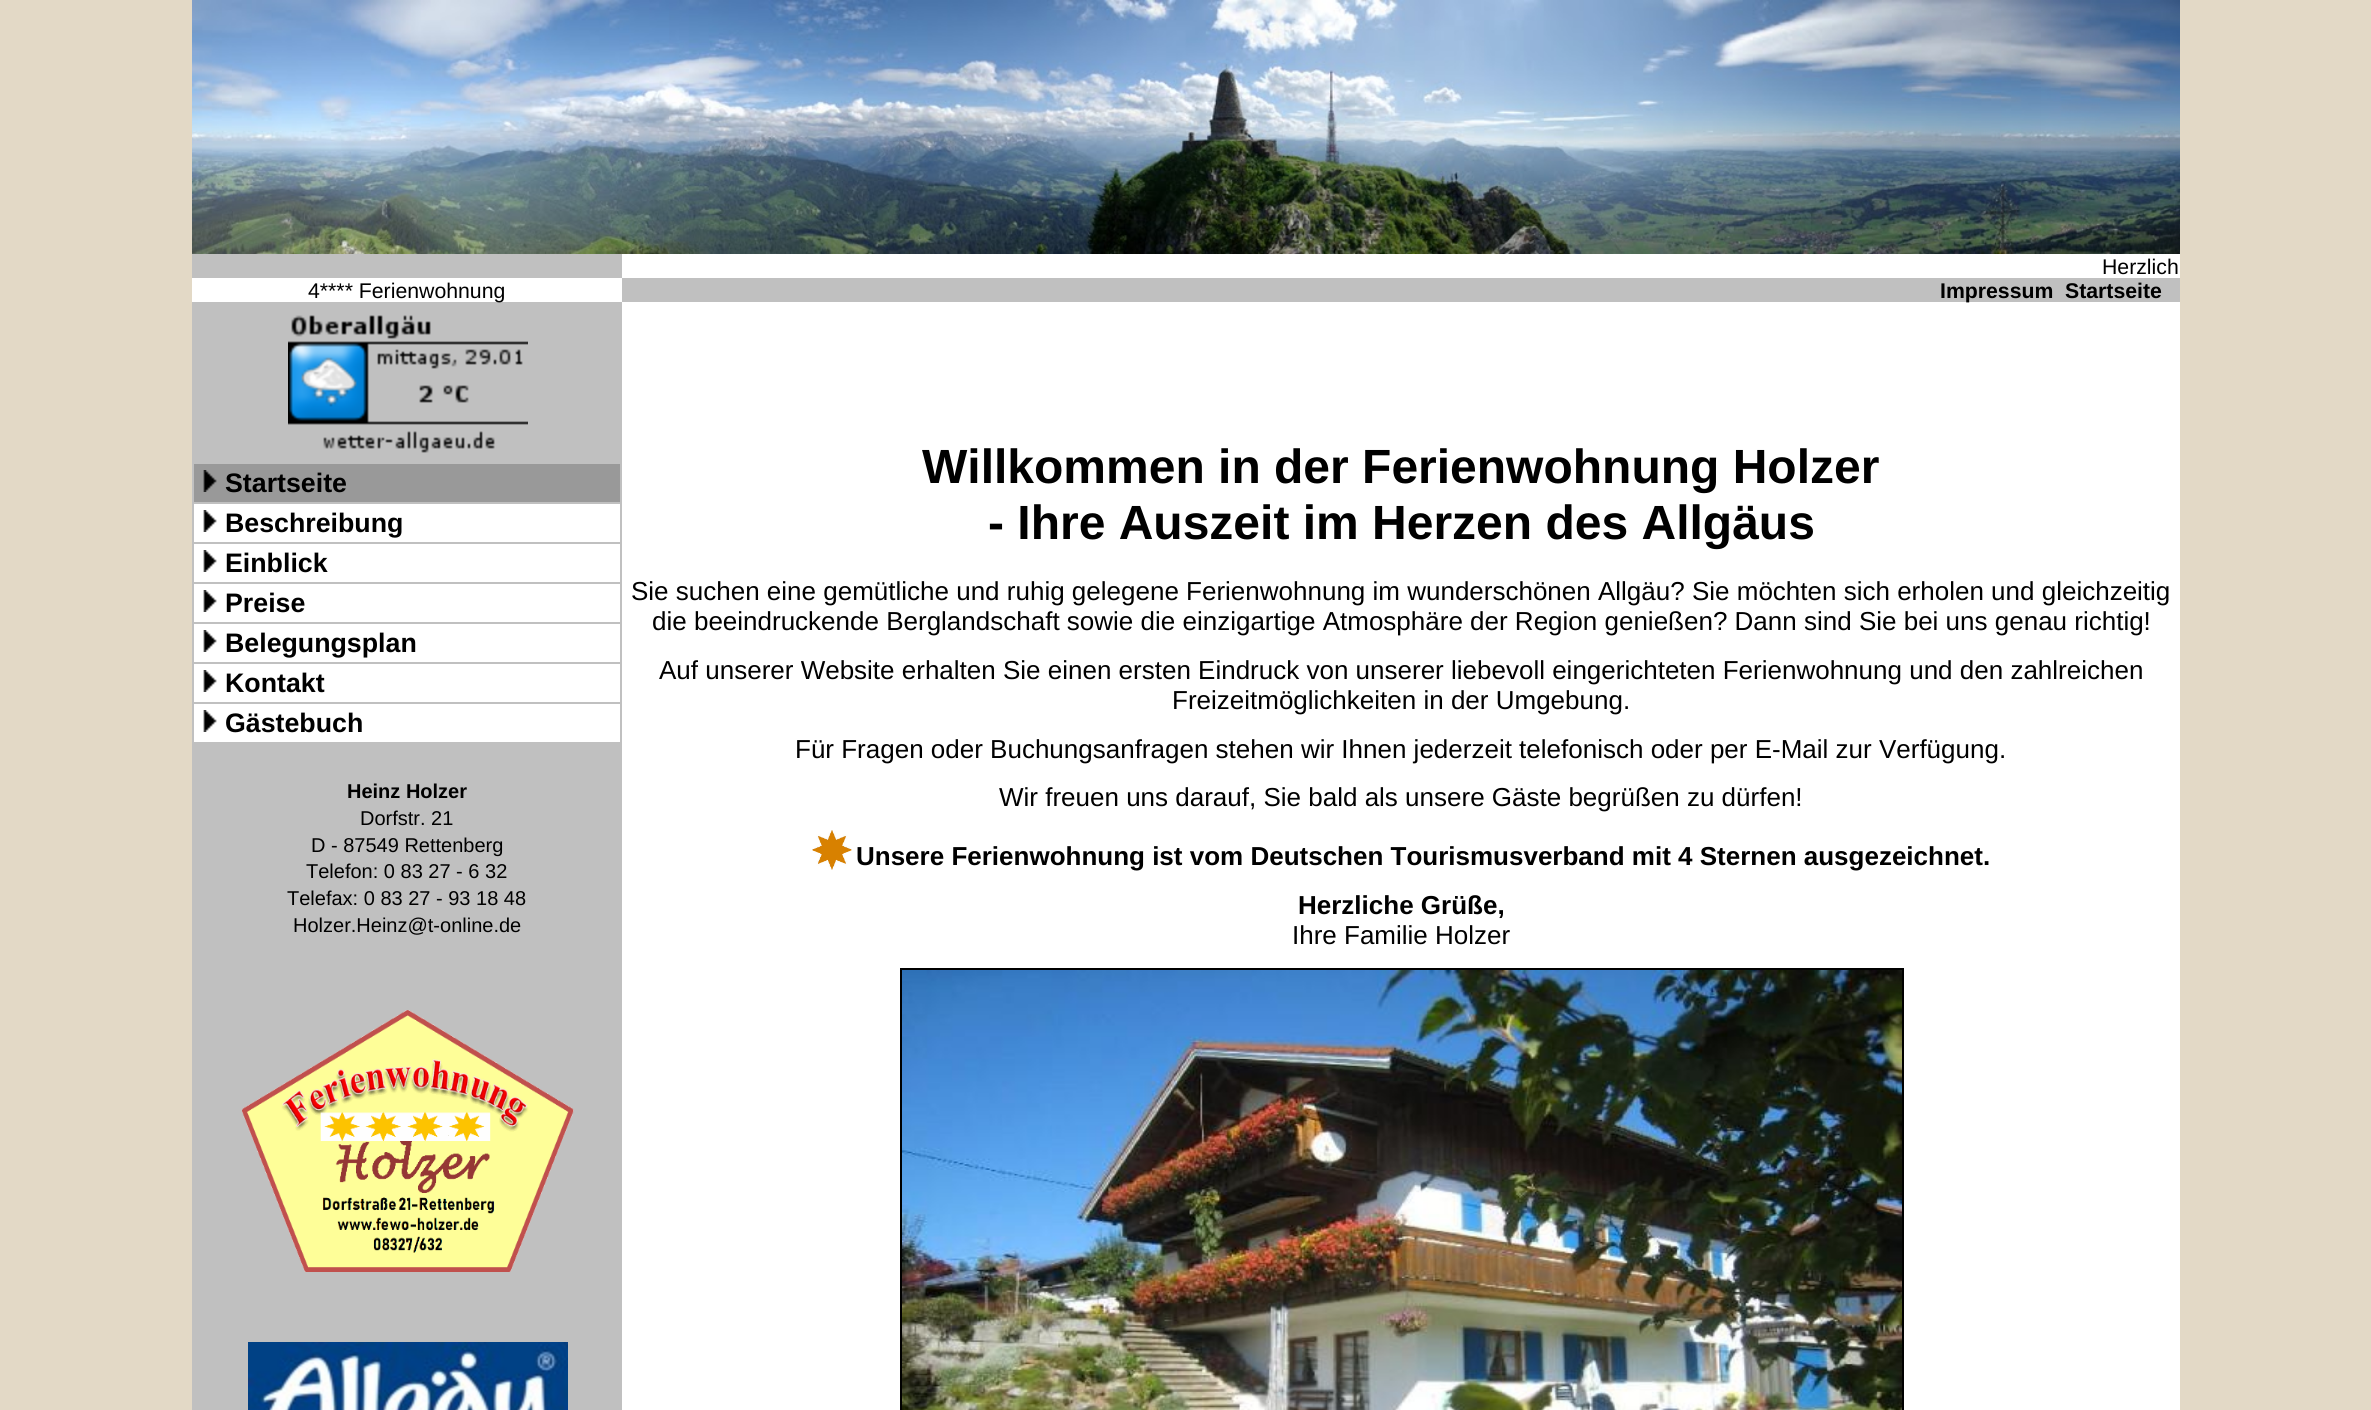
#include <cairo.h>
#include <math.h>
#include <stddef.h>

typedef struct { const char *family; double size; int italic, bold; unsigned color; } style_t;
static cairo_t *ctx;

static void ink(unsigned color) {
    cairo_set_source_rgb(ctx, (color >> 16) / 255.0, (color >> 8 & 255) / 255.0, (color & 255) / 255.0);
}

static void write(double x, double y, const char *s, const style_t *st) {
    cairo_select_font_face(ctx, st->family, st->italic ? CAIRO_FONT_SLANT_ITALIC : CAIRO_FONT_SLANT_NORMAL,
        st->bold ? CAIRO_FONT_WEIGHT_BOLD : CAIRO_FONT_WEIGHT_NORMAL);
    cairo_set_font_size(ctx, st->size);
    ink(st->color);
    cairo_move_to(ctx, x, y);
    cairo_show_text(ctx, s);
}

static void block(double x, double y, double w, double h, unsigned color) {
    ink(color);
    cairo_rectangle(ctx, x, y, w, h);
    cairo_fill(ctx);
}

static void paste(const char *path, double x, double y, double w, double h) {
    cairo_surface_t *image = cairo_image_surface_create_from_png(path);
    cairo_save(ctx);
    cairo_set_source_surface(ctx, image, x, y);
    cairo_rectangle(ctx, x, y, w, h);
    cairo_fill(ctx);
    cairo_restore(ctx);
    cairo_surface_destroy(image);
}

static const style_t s1 = {"Liberation Sans", 21.25, 0, 0, 0x000000};
static const style_t s2 = {"Liberation Sans", 21.25, 0, 1, 0x000000};
static const style_t s3 = {"Liberation Sans", 26.75, 0, 1, 0x000000};
static const style_t s4 = {"Liberation Sans", 20, 0, 1, 0x000000};
static const style_t s5 = {"Liberation Sans", 20, 0, 0, 0x000000};
static const style_t s6 = {"Liberation Sans", 48, 0, 1, 0x000000};
static const style_t s7 = {"Liberation Sans", 26, 0, 0, 0x000000};
static const style_t s8 = {"Liberation Sans", 26, 0, 1, 0x000000};

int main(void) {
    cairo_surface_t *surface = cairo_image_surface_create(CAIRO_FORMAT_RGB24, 2371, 1410);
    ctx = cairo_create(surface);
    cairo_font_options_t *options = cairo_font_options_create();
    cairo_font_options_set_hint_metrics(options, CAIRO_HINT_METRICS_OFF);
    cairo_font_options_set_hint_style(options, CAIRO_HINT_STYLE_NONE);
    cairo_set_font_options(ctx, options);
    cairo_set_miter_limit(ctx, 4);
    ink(0xe3d9c6);
    cairo_paint(ctx);
    block(192, 254, 1988, 1156, 0xc0c0c0);
    paste("pic1.png", 192, 0, 1988, 254);
    block(622, 254, 1558, 24, 0xffffff);
    write(2102, 274, "Herzlich", &s1);
    block(192, 278, 430, 24, 0xffffff);
    write(308, 298, "4**** Ferienwohnung", &s1);
    block(622, 302, 1558, 1108, 0xffffff);
    write(1940, 298, "Impressum", &s2);
    write(2065, 298, "Startseite", &s2);
    paste("pic2.png", 288, 315, 240, 138);
    block(194, 464, 426, 38, 0x999999);
    paste("pic3.png", 203, 470, 14, 22);
    write(225, 492, "Startseite", &s3);
    block(194, 504, 426, 38, 0xffffff);
    paste("pic4.png", 203, 510, 14, 22);
    write(225, 532, "Beschreibung", &s3);
    block(194, 544, 426, 38, 0xffffff);
    paste("pic4.png", 203, 550, 14, 22);
    write(225, 572, "Einblick", &s3);
    block(194, 584, 426, 38, 0xffffff);
    paste("pic4.png", 203, 590, 14, 22);
    write(225, 612, "Preise", &s3);
    block(194, 624, 426, 38, 0xffffff);
    paste("pic4.png", 203, 630, 14, 22);
    write(225, 652, "Belegungsplan", &s3);
    block(194, 664, 426, 38, 0xffffff);
    paste("pic4.png", 203, 670, 14, 22);
    write(225, 692, "Kontakt", &s3);
    block(194, 704, 426, 38, 0xffffff);
    paste("pic4.png", 203, 710, 14, 22);
    write(225, 732, "Gästebuch", &s3);
    write(347, 798, "Heinz Holzer", &s4);
    write(360, 825, "Dorfstr. 21", &s5);
    write(311, 852, "D - 87549 Rettenberg", &s5);
    write(306, 878, "Telefon: 0 83 27 - 6 32", &s5);
    write(287, 905, "Telefax: 0 83 27 - 93 18 48", &s5);
    write(293, 932, "Holzer.Heinz@t-online.de", &s5);
    paste("pic5.png", 242, 1010, 332, 262);
    paste("pic6.png", 248, 1342, 320, 68);
    write(922, 483, "Willkommen in der Ferienwohnung Holzer", &s6);
    write(988, 539, "- Ihre Auszeit im Herzen des Allgäus", &s6);
    write(631, 600, "Sie suchen eine gemütliche und ruhig gelegene Ferienwohnung im wunderschönen Allgäu? Sie möchten sich erholen und gleichzeitig", &s7);
    write(652, 630, "die beeindruckende Berglandschaft sowie die einzigartige Atmosphäre der Region genießen? Dann sind Sie bei uns genau richtig!", &s7);
    write(659, 679, "Auf unserer Website erhalten Sie einen ersten Eindruck von unserer liebevoll eingerichteten Ferienwohnung und den zahlreichen", &s7);
    write(1172, 709, "Freizeitmöglichkeiten in der Umgebung.", &s7);
    write(795, 758, "Für Fragen oder Buchungsanfragen stehen wir Ihnen jederzeit telefonisch oder per E-Mail zur Verfügung.", &s7);
    write(999, 806, "Wir freuen uns darauf, Sie bald als unsere Gäste begrüßen zu dürfen!", &s7);
    paste("pic7.png", 812, 830, 40, 40);
    write(856, 865, "Unsere Ferienwohnung ist vom Deutschen Tourismusverband mit 4 Sternen ausgezeichnet.", &s8);
    write(1298, 914, "Herzliche Grüße,", &s8);
    write(1292, 944, "Ihre Familie Holzer", &s7);
    cairo_rectangle(ctx, 901, 969, 1002, 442);
    cairo_stroke(ctx);
    paste("pic8.png", 902, 970, 1000, 440);
    cairo_surface_write_to_png(surface, "screenshot.png");
    cairo_font_options_destroy(options);
    cairo_destroy(ctx);
    cairo_surface_destroy(surface);
    return 0;
}
